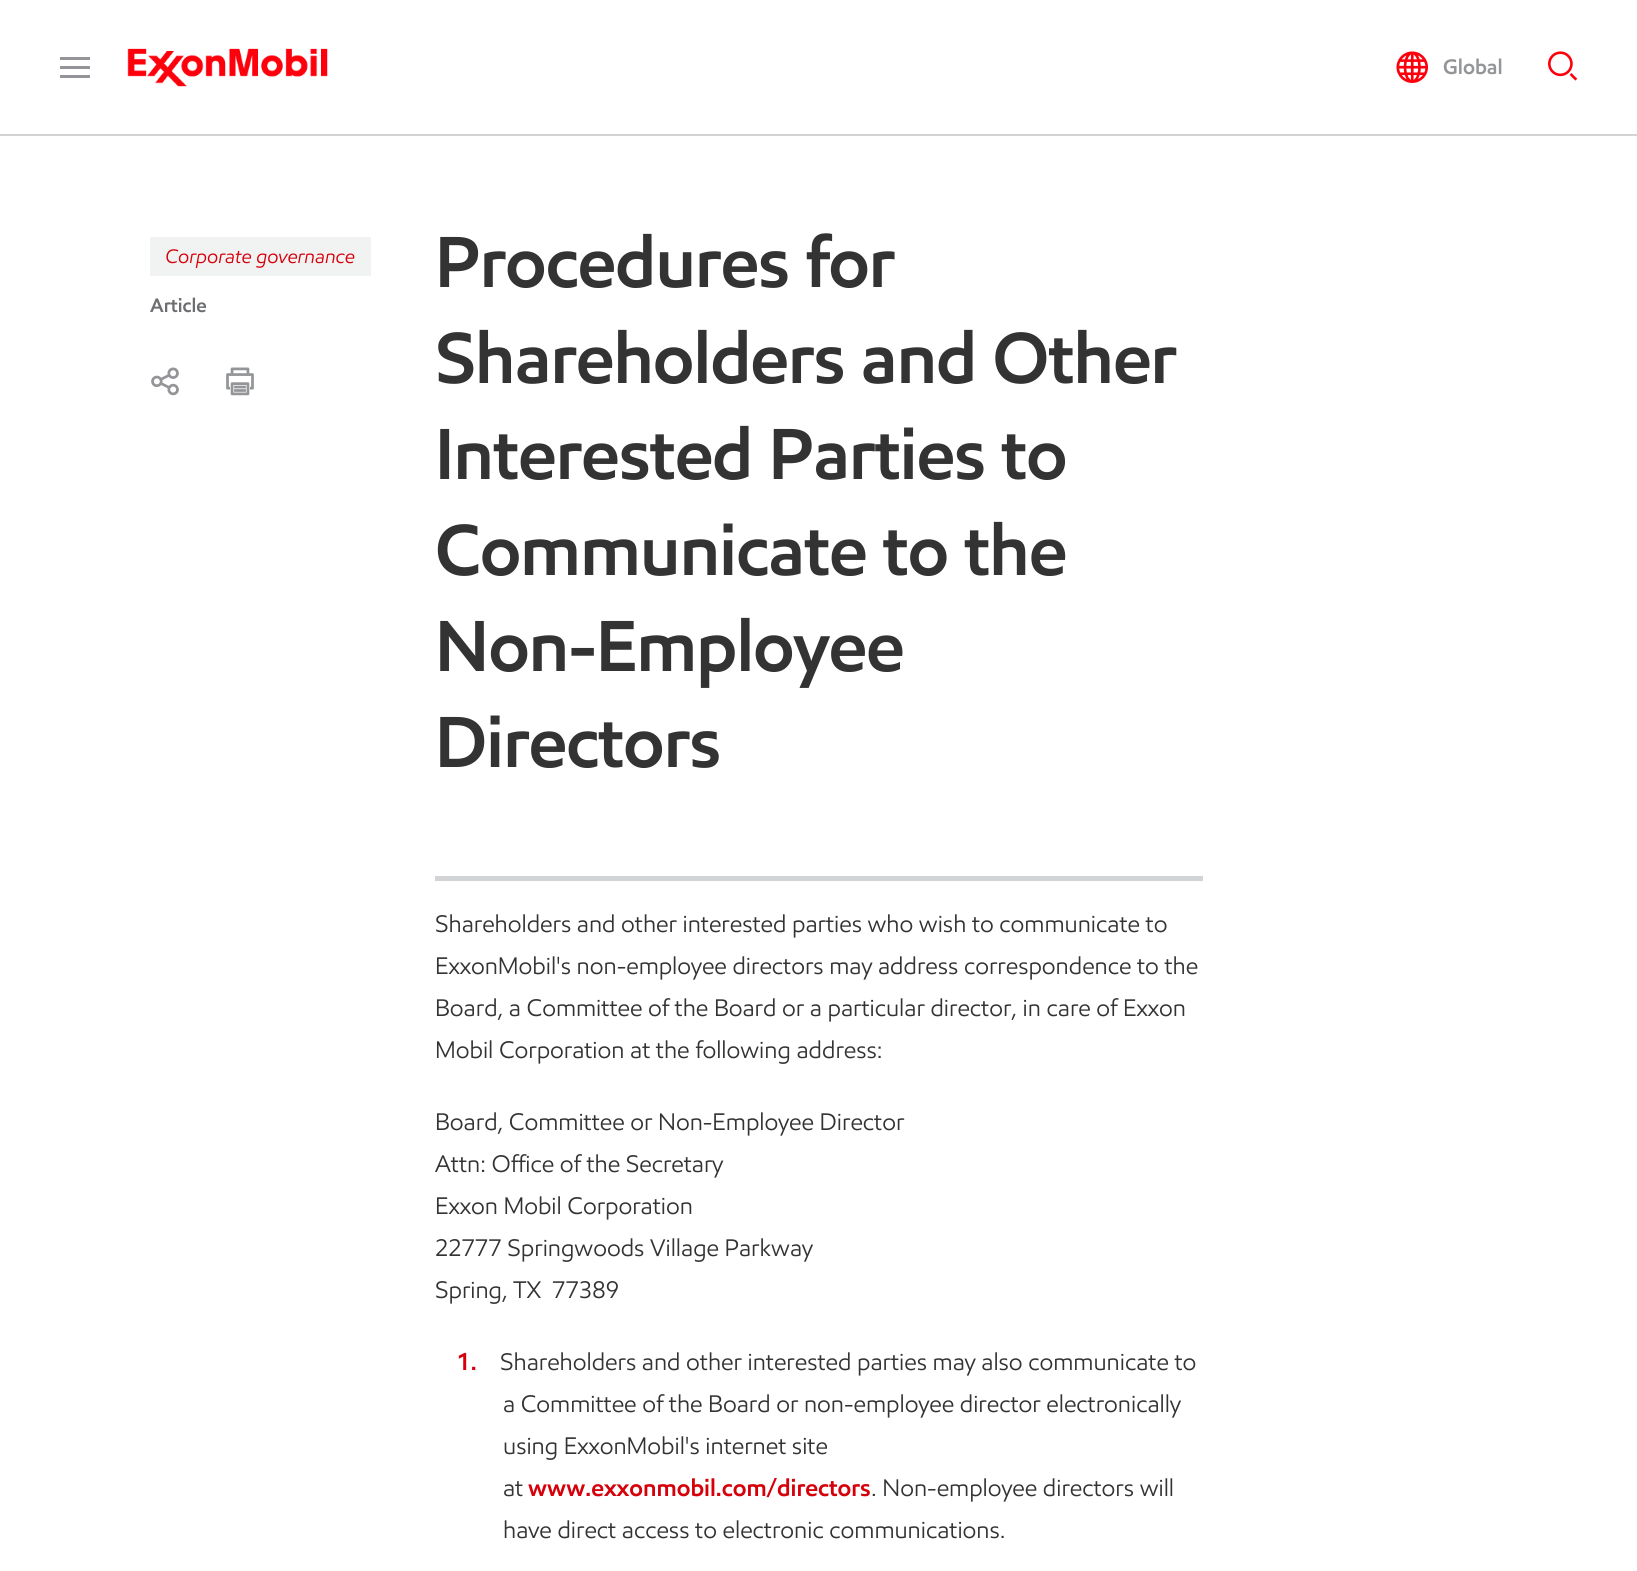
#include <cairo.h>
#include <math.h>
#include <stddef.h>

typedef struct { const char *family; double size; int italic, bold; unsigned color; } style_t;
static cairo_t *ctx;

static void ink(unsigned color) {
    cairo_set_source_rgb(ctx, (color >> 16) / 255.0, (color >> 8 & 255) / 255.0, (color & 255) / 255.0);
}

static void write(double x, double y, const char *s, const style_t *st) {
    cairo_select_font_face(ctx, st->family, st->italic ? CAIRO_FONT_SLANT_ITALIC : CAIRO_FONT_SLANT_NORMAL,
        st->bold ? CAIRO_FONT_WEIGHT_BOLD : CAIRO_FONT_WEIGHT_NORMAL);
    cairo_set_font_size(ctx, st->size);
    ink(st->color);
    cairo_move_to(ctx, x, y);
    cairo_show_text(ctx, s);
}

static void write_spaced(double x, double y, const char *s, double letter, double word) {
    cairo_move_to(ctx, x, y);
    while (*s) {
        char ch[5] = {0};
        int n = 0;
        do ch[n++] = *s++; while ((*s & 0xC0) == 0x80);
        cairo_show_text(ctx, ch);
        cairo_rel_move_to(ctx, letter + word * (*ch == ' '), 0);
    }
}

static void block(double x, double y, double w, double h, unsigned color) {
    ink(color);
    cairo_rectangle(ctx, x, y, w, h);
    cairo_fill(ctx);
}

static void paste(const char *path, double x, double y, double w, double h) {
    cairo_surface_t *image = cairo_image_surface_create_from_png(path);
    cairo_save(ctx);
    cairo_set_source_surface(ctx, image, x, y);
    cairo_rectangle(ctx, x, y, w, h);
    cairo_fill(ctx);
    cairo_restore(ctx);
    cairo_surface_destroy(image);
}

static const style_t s1 = {"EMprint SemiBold", 21, 0, 0, 0x939598};
static const style_t s2 = {"EMprint", 19.5, 1, 0, 0xd5000a};
static const style_t s3 = {"EMprint SemiBold", 19.5, 0, 0, 0x6d6e71};
static const style_t s4 = {"EMprint", 24, 0, 0, 0x333333};
static const style_t s5 = {"EMprint SemiBold", 24, 0, 0, 0xd5000a};

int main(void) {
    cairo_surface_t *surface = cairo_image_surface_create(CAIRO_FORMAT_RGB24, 1637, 1571);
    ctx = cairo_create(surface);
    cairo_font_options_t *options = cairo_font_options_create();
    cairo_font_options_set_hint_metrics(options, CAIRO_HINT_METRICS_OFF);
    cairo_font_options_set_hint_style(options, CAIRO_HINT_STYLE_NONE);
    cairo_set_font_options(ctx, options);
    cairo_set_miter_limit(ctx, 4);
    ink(0xffffff);
    cairo_paint(ctx);
    block(0, 134, 1637, 2, 0xd1d3d4);
    block(60, 57, 30, 3, 0x939598);
    block(60, 66, 30, 3, 0x939598);
    block(60, 75, 30, 3, 0x939598);
    paste("pic1.png", 127, 48, 201, 39);
    paste("pic2.png", 1396, 51, 32, 32);
    write(1443, 74, "Global", &s1);
    paste("pic3.png", 1548, 51, 30, 30);
    block(150, 237, 221, 39, 0xf1f2f2);
    write(165, 263, "Corporate governance", &s2);
    write(150, 312, "Article", &s3);
    paste("pic4.png", 151, 367, 28, 29);
    paste("pic5.png", 226, 367, 28, 29);
    cairo_set_font_size(ctx, 72);
    ink(0x333333);
    write_spaced(435, 287, "Procedures for", -0.75, 0);
    write_spaced(435, 383, "Shareholders and Other", -0.75, 0);
    write_spaced(435, 479, "Interested Parties to", -0.75, 0);
    write_spaced(435, 575, "Communicate to the", -0.75, 0);
    write_spaced(435, 671, "Non-Employee", -0.75, 0);
    write_spaced(435, 767, "Directors", -0.75, 0);
    block(435, 876, 768, 5, 0xd1d3d4);
    write(435, 932, "Shareholders and other interested parties who wish to communicate to", &s4);
    write(435, 974, "ExxonMobil's non-employee directors may address correspondence to the", &s4);
    write(435, 1016, "Board, a Committee of the Board or a particular director, in care of Exxon", &s4);
    write(435, 1058, "Mobil Corporation at the following address:", &s4);
    write(435, 1130, "Board, Committee or Non-Employee Director", &s4);
    write(435, 1172, "Attn: Office of the Secretary", &s4);
    write(435, 1214, "Exxon Mobil Corporation", &s4);
    write(435, 1256, "22777 Springwoods Village Parkway", &s4);
    write(435, 1298, "Spring, TX  77389", &s4);
    write(457, 1370, "1.", &s5);
    write(500, 1370, "Shareholders and other interested parties may also communicate to", &s4);
    write(503, 1412, "a Committee of the Board or non-employee director electronically", &s4);
    write(503, 1454, "using ExxonMobil's internet site", &s4);
    write(503, 1496, "at", &s4);
    write(528, 1496, "www.exxonmobil.com/directors", &s5);
    write(871, 1496, ". Non-employee directors will", &s4);
    write(503, 1538, "have direct access to electronic communications.", &s4);
    cairo_surface_write_to_png(surface, "screenshot.png");
    cairo_font_options_destroy(options);
    cairo_destroy(ctx);
    cairo_surface_destroy(surface);
    return 0;
}
